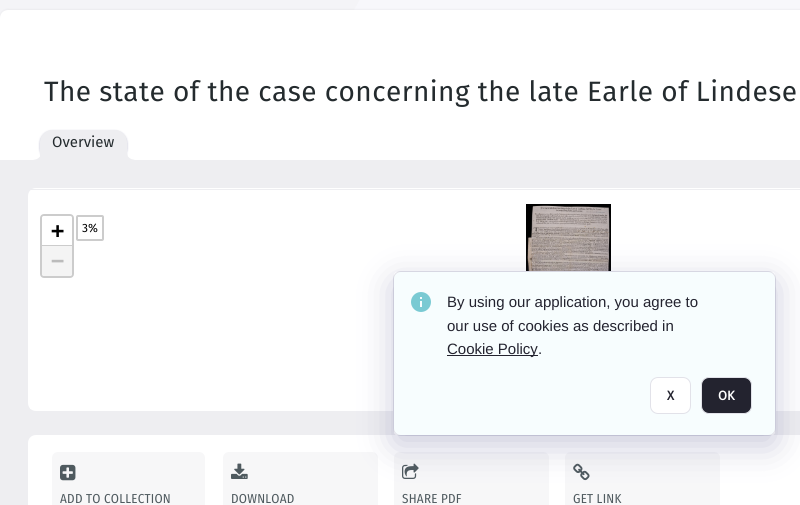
#include <cairo.h>
#include <math.h>
#include <stddef.h>

typedef struct { const char *family; double size; int italic, bold; unsigned color; } style_t;
static cairo_t *ctx;

static void ink(unsigned color) {
    cairo_set_source_rgb(ctx, (color >> 16) / 255.0, (color >> 8 & 255) / 255.0, (color & 255) / 255.0);
}

static void write(double x, double y, const char *s, const style_t *st) {
    cairo_select_font_face(ctx, st->family, st->italic ? CAIRO_FONT_SLANT_ITALIC : CAIRO_FONT_SLANT_NORMAL,
        st->bold ? CAIRO_FONT_WEIGHT_BOLD : CAIRO_FONT_WEIGHT_NORMAL);
    cairo_set_font_size(ctx, st->size);
    ink(st->color);
    cairo_move_to(ctx, x, y);
    cairo_show_text(ctx, s);
}

static void write_spaced(double x, double y, const char *s, double letter, double word) {
    cairo_move_to(ctx, x, y);
    while (*s) {
        char ch[5] = {0};
        int n = 0;
        do ch[n++] = *s++; while ((*s & 0xC0) == 0x80);
        cairo_show_text(ctx, ch);
        cairo_rel_move_to(ctx, letter + word * (*ch == ' '), 0);
    }
}

static void block(double x, double y, double w, double h, unsigned color) {
    ink(color);
    cairo_rectangle(ctx, x, y, w, h);
    cairo_fill(ctx);
}

static void round_path(double x, double y, double w, double h, double r) {
    cairo_new_sub_path(ctx);
    cairo_arc(ctx, x + w - r, y + h - r, r, 0, M_PI / 2);
    cairo_arc(ctx, x + r, y + h - r, r, M_PI / 2, M_PI);
    cairo_arc(ctx, x + r, y + r, r, M_PI, 1.5 * M_PI);
    cairo_arc(ctx, x + w - r, y + r, r, 1.5 * M_PI, 2 * M_PI);
    cairo_close_path(ctx);
}

static void blur_box(double x, double y, double w, double h, double r, double blur, double alpha) {
    cairo_push_group_with_content(ctx, CAIRO_CONTENT_ALPHA);
    cairo_set_operator(ctx, CAIRO_OPERATOR_SOURCE);
    for (int i = 15; i >= -15 && fmin(w, h) + blur * i / 3 > 0; i -= 2) {
        double e = blur * i / 6;
        cairo_set_source_rgba(ctx, 0, 0, 0, alpha * erfc((i - 1) / 8.5) / 2);
        round_path(x - e, y - e, w + 2 * e, h + 2 * e, fmax(0, fmin(r + e + blur * .6, fmin(w, h) / 2 + e)));
        cairo_fill(ctx);
    }
    cairo_pattern_t *soft = cairo_pop_group(ctx);
    cairo_mask(ctx, soft);
    cairo_pattern_destroy(soft);
}

static void paste(const char *path, double x, double y, double w, double h) {
    cairo_surface_t *image = cairo_image_surface_create_from_png(path);
    cairo_save(ctx);
    cairo_set_source_surface(ctx, image, x, y);
    cairo_rectangle(ctx, x, y, w, h);
    cairo_fill(ctx);
    cairo_restore(ctx);
    cairo_surface_destroy(image);
}

static const style_t s1 = {"Fira Sans", 15, 0, 0, 0x242b2e};
static const style_t s2 = {"DejaVu Sans Mono", 22, 0, 1, 0x000000};
static const style_t s3 = {"DejaVu Sans Mono", 22, 0, 1, 0xbbbbbb};
static const style_t s4 = {"Fira Sans", 12, 0, 0, 0x000000};
static const style_t s5 = {"Liberation Sans", 15, 0, 0, 0x23232f};
static const style_t s6 = {"Fira Sans", 13, 0, 1, 0x23232f};
static const style_t s7 = {"Fira Sans", 13, 0, 1, 0xffffff};

int main(void) {
    cairo_surface_t *surface = cairo_image_surface_create(CAIRO_FORMAT_RGB24, 800, 505);
    ctx = cairo_create(surface);
    cairo_font_options_t *options = cairo_font_options_create();
    cairo_font_options_set_hint_metrics(options, CAIRO_HINT_METRICS_OFF);
    cairo_font_options_set_hint_style(options, CAIRO_HINT_STYLE_NONE);
    cairo_set_font_options(ctx, options);
    cairo_set_miter_limit(ctx, 4);
    ink(0xf7f7fb);
    cairo_paint(ctx);
    paste("pic1.png", 0, 0, 360, 18);
    ink(0x000000);
    blur_box(0, 10, 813, 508, 8, 1.5, 0.08);
    ink(0xffffff);
    cairo_new_path(ctx);
    cairo_move_to(ctx, 8, 10);
    cairo_line_to(ctx, 800, 10);
    cairo_line_to(ctx, 800, 505);
    cairo_line_to(ctx, 0, 505);
    cairo_line_to(ctx, 0, 18);
    cairo_curve_to(ctx, 0, 13.5, 3.5, 10, 8, 10);
    cairo_close_path(ctx);
    cairo_fill(ctx);
    cairo_select_font_face(ctx, "Fira Sans", CAIRO_FONT_SLANT_NORMAL, CAIRO_FONT_WEIGHT_NORMAL);
    cairo_set_font_size(ctx, 28);
    ink(0x242b2e);
    write_spaced(44, 101, "The state of the case concerning the late Earle of Lindese", 0.42, 0);
    ink(0x6f6f9d);
    blur_box(40, 131, 87, 30, 12, 1, 0.5);
    ink(0xeeeef1);
    cairo_new_path(ctx);
    cairo_move_to(ctx, 52, 130);
    cairo_line_to(ctx, 115, 130);
    cairo_curve_to(ctx, 121.5, 130, 127, 135.5, 127, 142);
    cairo_line_to(ctx, 127, 160);
    cairo_line_to(ctx, 40, 160);
    cairo_line_to(ctx, 40, 142);
    cairo_curve_to(ctx, 40, 135.5, 45.5, 130, 52, 130);
    cairo_close_path(ctx);
    cairo_fill(ctx);
    cairo_new_path(ctx);
    cairo_move_to(ctx, 40.5, 154.5);
    cairo_line_to(ctx, 40, 156.5);
    cairo_line_to(ctx, 38.5, 158);
    cairo_line_to(ctx, 37, 159);
    cairo_line_to(ctx, 33, 160);
    cairo_line_to(ctx, 41, 160);
    cairo_line_to(ctx, 41, 152);
    cairo_close_path(ctx);
    cairo_fill(ctx);
    cairo_new_path(ctx);
    cairo_move_to(ctx, 127, 152);
    cairo_line_to(ctx, 127.5, 154.5);
    cairo_line_to(ctx, 128, 156.5);
    cairo_line_to(ctx, 129.5, 158);
    cairo_line_to(ctx, 131, 159);
    cairo_line_to(ctx, 135, 160);
    cairo_line_to(ctx, 127, 160);
    cairo_close_path(ctx);
    cairo_fill(ctx);
    write(52, 147, "Overview", &s1);
    block(0, 160, 800, 345, 0xeeeef1);
    ink(0xffffff);
    cairo_new_path(ctx);
    cairo_move_to(ctx, 36, 188);
    cairo_line_to(ctx, 800, 188);
    cairo_line_to(ctx, 800, 411);
    cairo_line_to(ctx, 36, 411);
    cairo_curve_to(ctx, 31.5, 411, 28, 407.5, 28, 403);
    cairo_line_to(ctx, 28, 196);
    cairo_curve_to(ctx, 28, 191.5, 31.5, 188, 36, 188);
    cairo_close_path(ctx);
    cairo_fill(ctx);
    block(28, 189, 772, 1, 0xeeeef1);
    block(30, 408, 1, 1, 0xffffff);
    round_path(41, 215, 32, 62, 3);
    ink(0xcccccc);
    cairo_stroke(ctx);
    ink(0xffffff);
    cairo_new_path(ctx);
    cairo_move_to(ctx, 44, 216);
    cairo_line_to(ctx, 70, 216);
    cairo_curve_to(ctx, 71, 216, 72, 217, 72, 218);
    cairo_line_to(ctx, 72, 246);
    cairo_line_to(ctx, 42, 246);
    cairo_line_to(ctx, 42, 218);
    cairo_curve_to(ctx, 42, 217, 43, 216, 44, 216);
    cairo_close_path(ctx);
    cairo_fill(ctx);
    block(42, 245, 30, 1, 0xcccccc);
    write(51, 238, "+", &s2);
    ink(0xf4f4f4);
    cairo_new_path(ctx);
    cairo_move_to(ctx, 42, 246);
    cairo_line_to(ctx, 72, 246);
    cairo_line_to(ctx, 72, 274);
    cairo_curve_to(ctx, 72, 275, 71, 276, 70, 276);
    cairo_line_to(ctx, 44, 276);
    cairo_curve_to(ctx, 43, 276, 42, 275, 42, 274);
    cairo_close_path(ctx);
    cairo_fill(ctx);
    write(51, 268, "−", &s3);
    paste("pic2.png", 526, 204, 85, 67);
    round_path(77, 216, 26, 24, 1);
    ink(0xcccccc);
    cairo_stroke(ctx);
    write(82, 232, "3%", &s4);
    ink(0xffffff);
    cairo_new_path(ctx);
    cairo_move_to(ctx, 36, 435);
    cairo_line_to(ctx, 800, 435);
    cairo_line_to(ctx, 800, 505);
    cairo_line_to(ctx, 28, 505);
    cairo_line_to(ctx, 28, 443);
    cairo_curve_to(ctx, 28, 438.5, 31.5, 435, 36, 435);
    cairo_close_path(ctx);
    cairo_fill(ctx);
    ink(0xf7f7f8);
    cairo_new_path(ctx);
    cairo_move_to(ctx, 58, 452);
    cairo_line_to(ctx, 199, 452);
    cairo_curve_to(ctx, 202.5, 452, 205, 454.5, 205, 458);
    cairo_line_to(ctx, 205, 505);
    cairo_line_to(ctx, 52, 505);
    cairo_line_to(ctx, 52, 458);
    cairo_curve_to(ctx, 52, 454.5, 54.5, 452, 58, 452);
    cairo_close_path(ctx);
    cairo_fill(ctx);
    paste("pic3.png", 60, 464, 16, 17);
    cairo_select_font_face(ctx, "Fira Sans Condensed", CAIRO_FONT_SLANT_NORMAL, CAIRO_FONT_WEIGHT_NORMAL);
    cairo_set_font_size(ctx, 13);
    ink(0x4f5a5f);
    write_spaced(60, 503, "ADD TO COLLECTION", 0.25, 0);
    ink(0xf7f7f8);
    cairo_new_path(ctx);
    cairo_move_to(ctx, 229, 452);
    cairo_line_to(ctx, 372, 452);
    cairo_curve_to(ctx, 375.5, 452, 378, 454.5, 378, 458);
    cairo_line_to(ctx, 378, 505);
    cairo_line_to(ctx, 223, 505);
    cairo_line_to(ctx, 223, 458);
    cairo_curve_to(ctx, 223, 454.5, 225.5, 452, 229, 452);
    cairo_close_path(ctx);
    cairo_fill(ctx);
    paste("pic4.png", 231, 463, 17, 16);
    ink(0x4f5a5f);
    write_spaced(231, 503, "DOWNLOAD", 0.25, 0);
    ink(0xf7f7f8);
    cairo_new_path(ctx);
    cairo_move_to(ctx, 400, 452);
    cairo_line_to(ctx, 543, 452);
    cairo_curve_to(ctx, 546.5, 452, 549, 454.5, 549, 458);
    cairo_line_to(ctx, 549, 505);
    cairo_line_to(ctx, 394, 505);
    cairo_line_to(ctx, 394, 458);
    cairo_curve_to(ctx, 394, 454.5, 396.5, 452, 400, 452);
    cairo_close_path(ctx);
    cairo_fill(ctx);
    paste("pic5.png", 402, 463, 17, 16);
    ink(0x4f5a5f);
    write_spaced(402, 503, "SHARE PDF", 0.25, 0);
    ink(0xf7f7f8);
    cairo_new_path(ctx);
    cairo_move_to(ctx, 571, 452);
    cairo_line_to(ctx, 714, 452);
    cairo_curve_to(ctx, 717.5, 452, 720, 454.5, 720, 458);
    cairo_line_to(ctx, 720, 505);
    cairo_line_to(ctx, 565, 505);
    cairo_line_to(ctx, 565, 458);
    cairo_curve_to(ctx, 565, 454.5, 567.5, 452, 571, 452);
    cairo_close_path(ctx);
    cairo_fill(ctx);
    paste("pic6.png", 573, 463, 17, 18);
    ink(0x4f5a5f);
    write_spaced(573, 503, "GET LINK", 0.25, 0);
    ink(0xf7fdfe);
    round_path(393.5, 271.5, 382, 164, 7.5);
    cairo_fill_preserve(ctx);
    ink(0xe2e2e9);
    cairo_set_line_width(ctx, 1);
    cairo_stroke(ctx);
    cairo_save(ctx);
    cairo_set_fill_rule(ctx, CAIRO_FILL_RULE_EVEN_ODD);
    cairo_new_path(ctx);
    cairo_move_to(ctx, 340, 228);
    cairo_line_to(ctx, 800, 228);
    cairo_line_to(ctx, 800, 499);
    cairo_line_to(ctx, 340, 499);
    cairo_close_path(ctx);
    cairo_move_to(ctx, 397, 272);
    cairo_line_to(ctx, 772, 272);
    cairo_curve_to(ctx, 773.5, 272, 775, 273.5, 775, 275);
    cairo_line_to(ctx, 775, 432);
    cairo_curve_to(ctx, 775, 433.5, 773.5, 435, 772, 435);
    cairo_line_to(ctx, 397, 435);
    cairo_curve_to(ctx, 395.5, 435, 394, 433.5, 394, 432);
    cairo_line_to(ctx, 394, 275);
    cairo_curve_to(ctx, 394, 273.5, 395.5, 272, 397, 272);
    cairo_close_path(ctx);
    cairo_clip(ctx);
    ink(0x4d4d87);
    blur_box(394, 282, 381, 163, 3, 17.5, 0.3);
    cairo_restore(ctx);
    paste("pic7.png", 411, 292, 20, 20);
    write(447, 307, "By using our application, you agree to", &s5);
    write(447, 331, "our use of cookies as described in", &s5);
    block(447, 355, 91, 1, 0x23232f);
    write(447, 354, "Cookie Policy", &s5);
    write(538, 354, ".", &s5);
    ink(0xffffff);
    round_path(650.5, 377.5, 40, 36, 7.5);
    cairo_fill_preserve(ctx);
    ink(0xe2e2e9);
    cairo_stroke(ctx);
    write(667, 400, "X", &s6);
    round_path(701.5, 377.5, 50, 36, 7.5);
    cairo_fill_preserve(ctx);
    ink(0xe2e2e9);
    cairo_stroke(ctx);
    write(718, 400, "OK", &s7);
    cairo_surface_write_to_png(surface, "screenshot.png");
    cairo_font_options_destroy(options);
    cairo_destroy(ctx);
    cairo_surface_destroy(surface);
    return 0;
}
